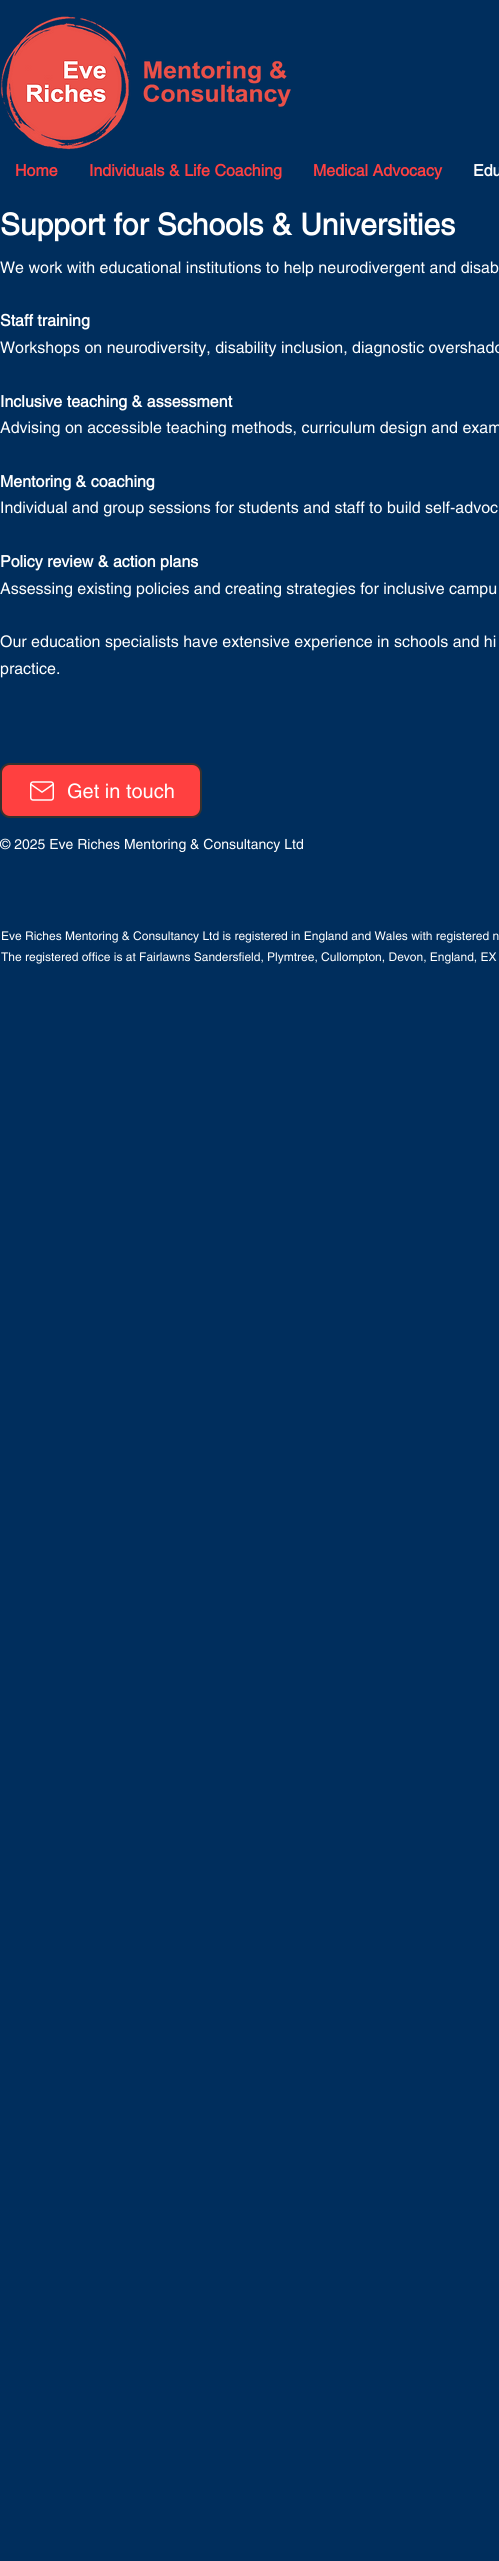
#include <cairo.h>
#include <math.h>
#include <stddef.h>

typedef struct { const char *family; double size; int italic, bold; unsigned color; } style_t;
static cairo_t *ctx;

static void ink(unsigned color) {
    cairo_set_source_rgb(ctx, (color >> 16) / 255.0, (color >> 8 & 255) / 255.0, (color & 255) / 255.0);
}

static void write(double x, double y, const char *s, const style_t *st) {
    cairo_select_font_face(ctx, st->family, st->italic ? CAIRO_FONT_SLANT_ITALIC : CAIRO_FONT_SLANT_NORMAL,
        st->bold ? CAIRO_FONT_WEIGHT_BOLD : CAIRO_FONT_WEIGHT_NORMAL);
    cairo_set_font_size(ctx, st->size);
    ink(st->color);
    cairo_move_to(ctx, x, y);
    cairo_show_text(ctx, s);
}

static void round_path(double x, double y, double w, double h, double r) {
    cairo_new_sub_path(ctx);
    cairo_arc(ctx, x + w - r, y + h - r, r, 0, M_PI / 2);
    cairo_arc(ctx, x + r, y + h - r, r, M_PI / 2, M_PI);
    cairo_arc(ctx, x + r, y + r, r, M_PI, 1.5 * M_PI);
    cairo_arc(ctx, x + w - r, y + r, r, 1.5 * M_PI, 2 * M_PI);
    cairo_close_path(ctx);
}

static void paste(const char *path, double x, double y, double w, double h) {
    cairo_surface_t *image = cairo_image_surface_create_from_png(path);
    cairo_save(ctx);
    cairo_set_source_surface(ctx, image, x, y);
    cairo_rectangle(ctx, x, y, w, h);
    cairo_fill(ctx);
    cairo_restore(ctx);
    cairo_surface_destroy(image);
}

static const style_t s1 = {"helvetica", 16, 0, 1, 0xff4040};
static const style_t s2 = {"helvetica", 16, 0, 1, 0xffffff};
static const style_t s3 = {"helvetica", 30, 0, 1, 0xffffff};
static const style_t s4 = {"helvetica", 16, 0, 0, 0xffffff};
static const style_t s5 = {"helvetica", 20, 0, 0, 0xffffff};
static const style_t s6 = {"helvetica", 14, 0, 0, 0xffffff};
static const style_t s7 = {"helvetica", 12, 0, 0, 0xffffff};

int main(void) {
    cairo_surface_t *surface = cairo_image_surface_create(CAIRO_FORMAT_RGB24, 499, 2561);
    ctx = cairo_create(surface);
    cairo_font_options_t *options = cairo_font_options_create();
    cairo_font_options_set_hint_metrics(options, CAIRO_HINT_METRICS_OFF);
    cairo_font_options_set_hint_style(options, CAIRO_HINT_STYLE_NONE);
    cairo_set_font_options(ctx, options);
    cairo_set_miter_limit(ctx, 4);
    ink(0x002e5d);
    cairo_paint(ctx);
    paste("pic1.png", 1, 16, 290, 134);
    write(15, 176, "Home", &s1);
    write(89, 176, "Individuals & Life Coaching", &s1);
    write(313, 176, "Medical Advocacy", &s1);
    write(473, 176, "Edu", &s2);
    write(0, 235, "Support for Schools & Universities", &s3);
    write(0, 273, "We work with educational institutions to help neurodivergent and disab", &s4);
    write(0, 326, "Staff training", &s2);
    write(0, 353, "Workshops on neurodiversity, disability inclusion, diagnostic overshado", &s4);
    write(0, 407, "Inclusive teaching & assessment", &s2);
    write(0, 433, "Advising on accessible teaching methods, curriculum design and exam", &s4);
    write(0, 487, "Mentoring & coaching", &s2);
    write(0, 513, "Individual and group sessions for students and staff to build self-advoc", &s4);
    write(0, 567, "Policy review & action plans", &s2);
    write(0, 594, "Assessing existing policies and creating strategies for inclusive campu", &s4);
    write(0, 647, "Our education specialists have extensive experience in schools and hi", &s4);
    write(0, 674, "practice.", &s4);
    ink(0xff4040);
    round_path(1, 764, 200, 53, 9);
    cairo_fill_preserve(ctx);
    ink(0x37322e);
    cairo_stroke(ctx);
    paste("pic2.png", 30, 781, 24, 20);
    write(67, 798, "Get in touch", &s5);
    write(0, 849, "© 2025 Eve Riches Mentoring & Consultancy Ltd", &s6);
    write(1, 940, "Eve Riches Mentoring & Consultancy Ltd is registered in England and Wales with registered n", &s7);
    write(1, 961, "The registered office is at Fairlawns Sandersfield, Plymtree, Cullompton, Devon, England, EX", &s7);
    cairo_surface_write_to_png(surface, "screenshot.png");
    cairo_font_options_destroy(options);
    cairo_destroy(ctx);
    cairo_surface_destroy(surface);
    return 0;
}
